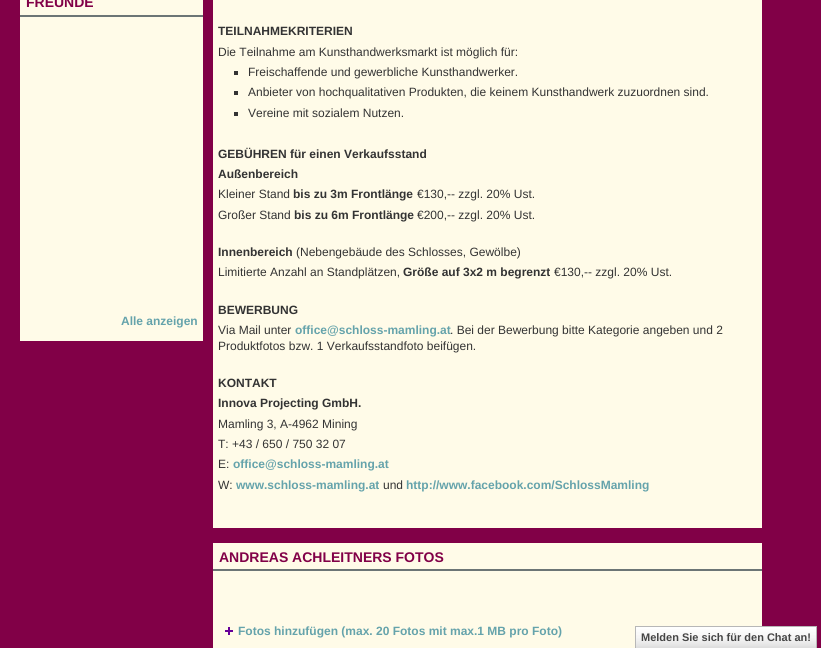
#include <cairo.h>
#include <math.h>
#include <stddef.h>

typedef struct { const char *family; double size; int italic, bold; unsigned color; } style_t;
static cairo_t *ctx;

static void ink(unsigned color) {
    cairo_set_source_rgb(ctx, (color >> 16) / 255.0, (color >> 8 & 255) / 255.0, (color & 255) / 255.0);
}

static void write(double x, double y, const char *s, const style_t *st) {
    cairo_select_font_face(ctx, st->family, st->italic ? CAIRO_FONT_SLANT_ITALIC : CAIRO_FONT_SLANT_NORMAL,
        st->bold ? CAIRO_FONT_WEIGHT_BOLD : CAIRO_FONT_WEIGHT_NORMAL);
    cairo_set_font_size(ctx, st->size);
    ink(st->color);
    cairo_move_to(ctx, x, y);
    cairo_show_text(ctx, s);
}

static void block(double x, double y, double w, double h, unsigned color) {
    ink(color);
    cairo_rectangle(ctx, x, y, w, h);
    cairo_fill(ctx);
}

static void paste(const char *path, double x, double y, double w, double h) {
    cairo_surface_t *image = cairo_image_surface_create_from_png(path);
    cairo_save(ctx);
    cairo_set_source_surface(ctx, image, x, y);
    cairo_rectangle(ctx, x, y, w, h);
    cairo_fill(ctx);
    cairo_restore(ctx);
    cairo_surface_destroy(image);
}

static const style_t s1 = {"Liberation Sans", 14, 0, 1, 0x810047};
static const style_t s2 = {"Liberation Sans", 12, 0, 1, 0x65a3ab};
static const style_t s3 = {"Liberation Sans", 12, 0, 1, 0x333333};
static const style_t s4 = {"Liberation Sans", 12, 0, 0, 0x333333};
static const style_t s5 = {"Liberation Sans", 11, 0, 1, 0x454545};

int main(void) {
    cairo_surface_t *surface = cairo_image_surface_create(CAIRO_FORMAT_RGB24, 821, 648);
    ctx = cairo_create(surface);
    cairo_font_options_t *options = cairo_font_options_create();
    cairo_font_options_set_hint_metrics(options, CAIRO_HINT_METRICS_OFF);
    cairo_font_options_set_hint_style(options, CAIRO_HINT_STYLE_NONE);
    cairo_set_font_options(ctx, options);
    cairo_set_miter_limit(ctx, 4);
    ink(0x810047);
    cairo_paint(ctx);
    block(20, 0, 183, 341, 0xfffbe8);
    block(20, 15, 183, 2, 0x6c7575);
    write(26, 7, "FREUNDE", &s1);
    write(121, 325, "Alle anzeigen", &s2);
    block(213, 0, 549, 528, 0xfffbe8);
    write(218, 35, "TEILNAHMEKRITERIEN", &s3);
    write(218, 56, "Die Teilnahme am Kunsthandwerksmarkt ist möglich für:", &s4);
    block(234, 71, 4, 4, 0x333333);
    write(248, 76, "Freischaffende und gewerbliche Kunsthandwerker.", &s4);
    block(234, 91, 4, 4, 0x333333);
    write(248, 96, "Anbieter von hochqualitativen Produkten, die keinem Kunsthandwerk zuzuordnen sind.", &s4);
    block(234, 112, 4, 4, 0x333333);
    write(248, 117, "Vereine mit sozialem Nutzen.", &s4);
    write(218, 158, "GEBÜHREN für einen Verkaufsstand", &s3);
    write(218, 178, "Außenbereich", &s3);
    write(218, 198, "Kleiner Stand", &s4);
    write(293, 198, "bis zu 3m Frontlänge", &s3);
    write(417, 198, "€130,-- zzgl. 20% Ust.", &s4);
    write(218, 219, "Großer Stand", &s4);
    write(294, 219, "bis zu 6m Frontlänge", &s3);
    write(417, 219, "€200,-- zzgl. 20% Ust.", &s4);
    write(218, 256, "Innenbereich", &s3);
    write(296, 256, "(Nebengebäude des Schlosses, Gewölbe)", &s4);
    write(218, 276, "Limitierte Anzahl an Standplätzen,", &s4);
    write(403, 276, "Größe auf 3x2 m begrenzt", &s3);
    write(554, 276, "€130,-- zzgl. 20% Ust.", &s4);
    write(218, 314, "BEWERBUNG", &s3);
    write(218, 334, "Via Mail unter", &s4);
    write(295, 334, "office@schloss-mamling.at", &s2);
    write(450, 334, ". Bei der Bewerbung bitte Kategorie angeben und 2", &s4);
    write(218, 350, "Produktfotos bzw. 1 Verkaufsstandfoto beifügen.", &s4);
    write(218, 387, "KONTAKT", &s3);
    write(218, 407, "Innova Projecting GmbH.", &s3);
    write(218, 428, "Mamling 3, A-4962 Mining", &s4);
    write(218, 448, "T: +43 / 650 / 750 32 07", &s4);
    write(218, 468, "E:", &s4);
    write(233, 468, "office@schloss-mamling.at", &s2);
    write(218, 489, "W:", &s4);
    write(236, 489, "www.schloss-mamling.at", &s2);
    write(383, 489, "und", &s4);
    write(406, 489, "http://www.facebook.com/SchlossMamling", &s2);
    block(213, 543, 549, 105, 0xfffbe8);
    block(213, 569, 549, 2, 0x6c7575);
    write(219, 562, "ANDREAS ACHLEITNERS FOTOS", &s1);
    paste("pic1.png", 225, 627, 8, 8);
    write(238, 635, "Fotos hinzufügen (max. 20 Fotos mit max.1 MB pro Foto)", &s2);
    paste("pic2.png", 636, 627, 180, 21);
    cairo_rectangle(ctx, 635.5, 626.5, 181, 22);
    ink(0xb7b7b7);
    cairo_set_line_width(ctx, 1);
    cairo_stroke(ctx);
    write(641, 641, "Melden Sie sich für den Chat an!", &s5);
    cairo_surface_write_to_png(surface, "screenshot.png");
    cairo_font_options_destroy(options);
    cairo_destroy(ctx);
    cairo_surface_destroy(surface);
    return 0;
}
